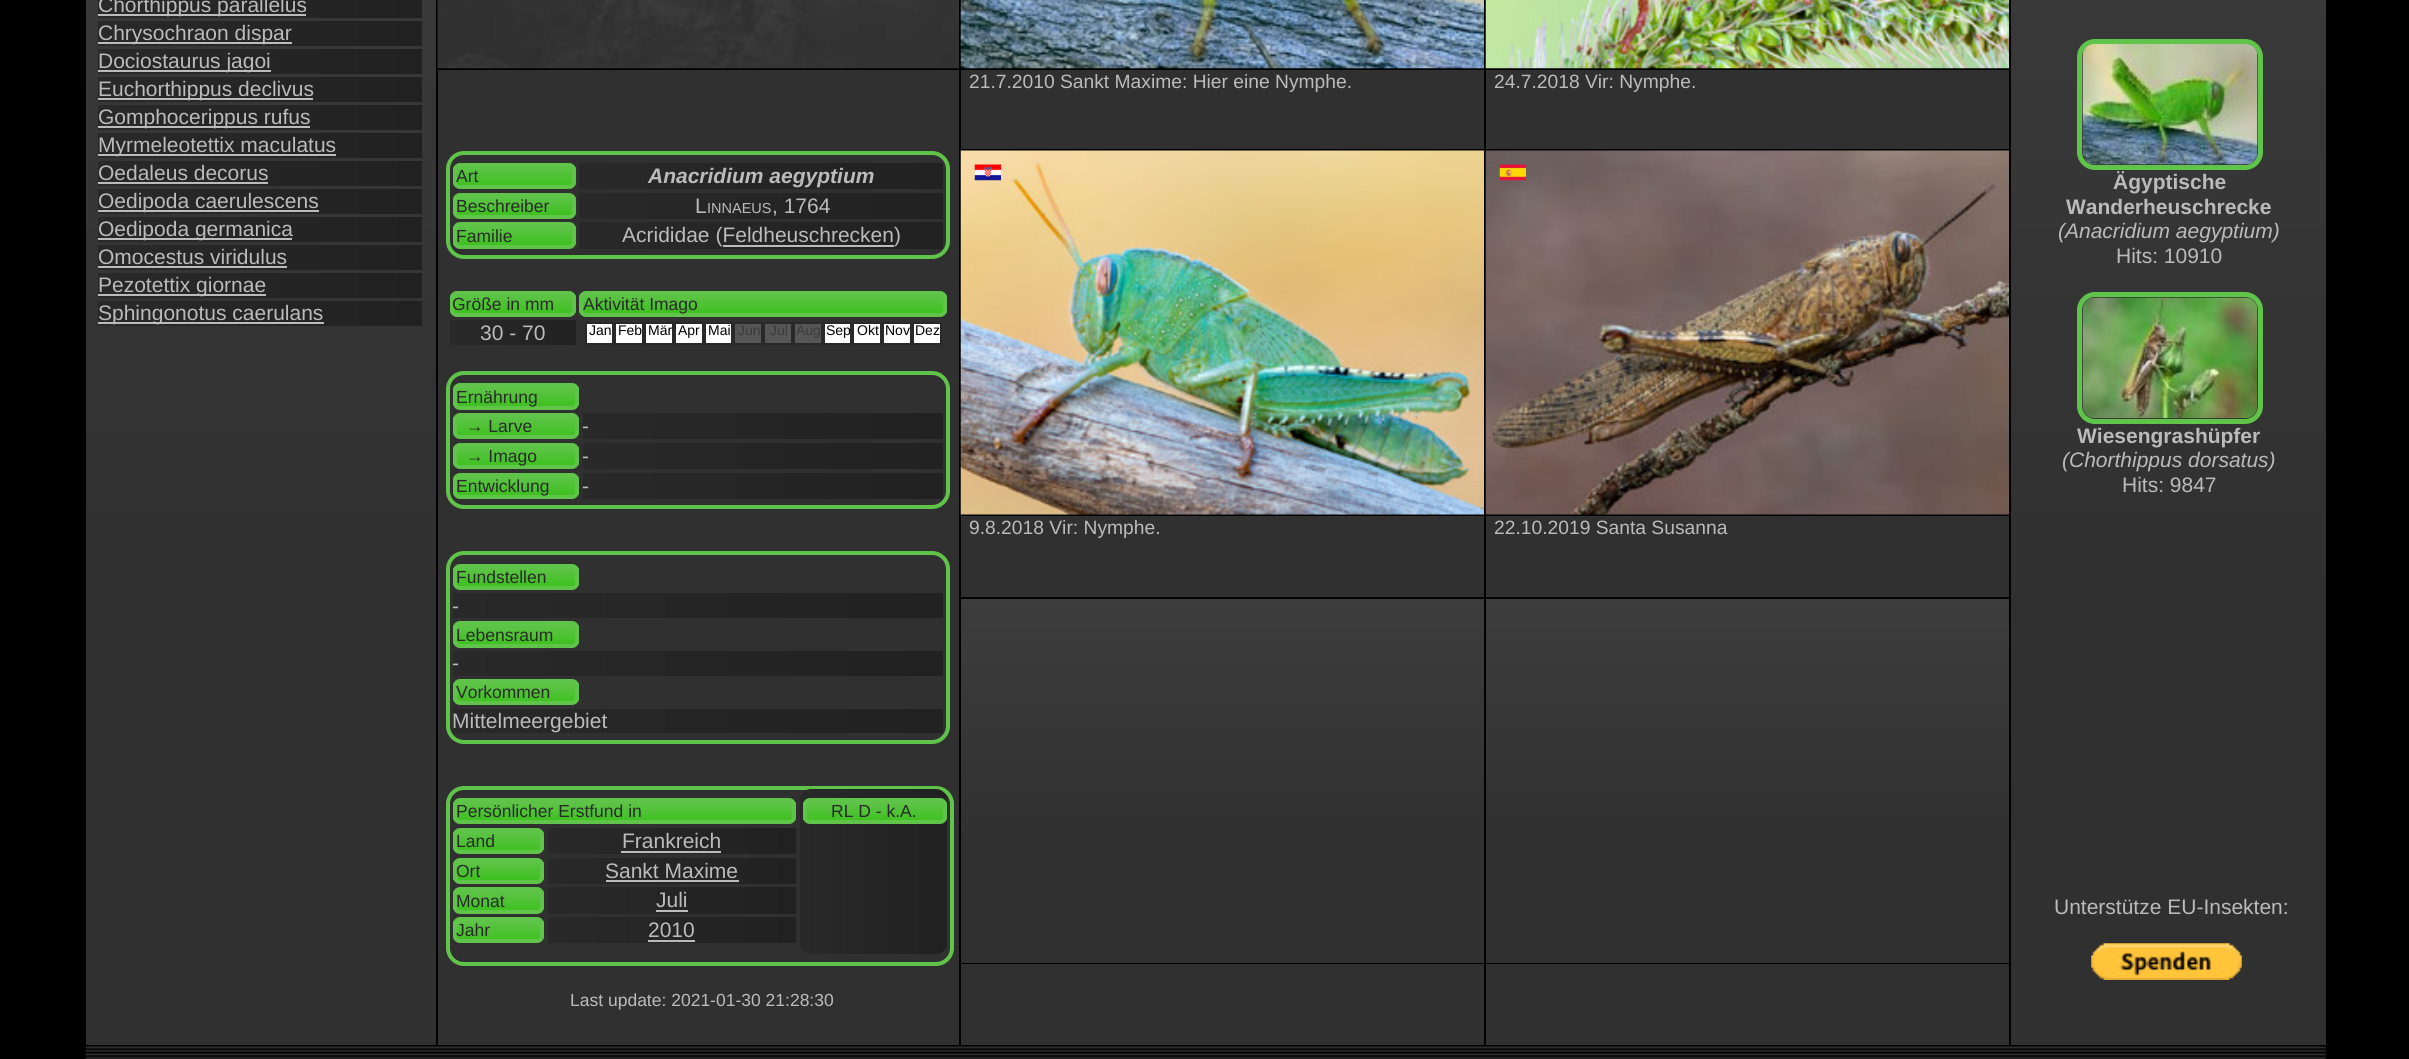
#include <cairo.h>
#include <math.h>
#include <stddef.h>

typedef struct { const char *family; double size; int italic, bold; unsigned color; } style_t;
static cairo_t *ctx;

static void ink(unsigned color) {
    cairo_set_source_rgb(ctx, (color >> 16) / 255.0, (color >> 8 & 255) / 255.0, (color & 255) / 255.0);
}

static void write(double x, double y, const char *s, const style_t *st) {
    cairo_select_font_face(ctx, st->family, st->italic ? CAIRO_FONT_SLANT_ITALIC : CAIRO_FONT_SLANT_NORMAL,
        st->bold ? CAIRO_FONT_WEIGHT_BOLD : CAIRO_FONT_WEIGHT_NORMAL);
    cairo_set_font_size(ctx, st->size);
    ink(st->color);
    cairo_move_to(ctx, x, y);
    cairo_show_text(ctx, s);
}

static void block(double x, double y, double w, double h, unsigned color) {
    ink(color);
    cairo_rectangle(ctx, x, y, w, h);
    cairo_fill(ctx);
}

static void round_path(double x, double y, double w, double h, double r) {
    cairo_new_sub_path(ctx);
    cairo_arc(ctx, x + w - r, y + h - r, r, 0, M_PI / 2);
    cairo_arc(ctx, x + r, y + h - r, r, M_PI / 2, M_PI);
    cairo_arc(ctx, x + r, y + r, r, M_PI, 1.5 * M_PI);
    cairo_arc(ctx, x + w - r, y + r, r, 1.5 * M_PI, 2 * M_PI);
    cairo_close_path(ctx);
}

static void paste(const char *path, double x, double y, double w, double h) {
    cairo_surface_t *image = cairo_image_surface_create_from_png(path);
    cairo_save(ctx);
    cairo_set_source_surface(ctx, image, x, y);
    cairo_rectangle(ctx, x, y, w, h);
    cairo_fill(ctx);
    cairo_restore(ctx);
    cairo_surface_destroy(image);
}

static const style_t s1 = {"Liberation Sans", 21, 0, 0, 0xbbbbbb};
static const style_t s2 = {"Liberation Sans", 17.5, 0, 0, 0x292929};
static const style_t s3 = {"Liberation Sans", 21, 1, 1, 0xbbbbbb};
static const style_t s4 = {"Liberation Sans", 14.5, 0, 0, 0xbbbbbb};
static const style_t s5 = {"Liberation Sans", 14, 0, 0, 0x000000};
static const style_t s6 = {"Liberation Sans", 14, 0, 0, 0x3b3b3b};
static const style_t s7 = {"Liberation Sans", 17.5, 0, 0, 0xbbbbbb};
static const style_t s8 = {"Liberation Sans", 19.25, 0, 0, 0xbbbbbb};
static const style_t s9 = {"Liberation Sans", 21, 0, 1, 0xbbbbbb};
static const style_t s10 = {"Liberation Sans", 21, 1, 0, 0xbbbbbb};

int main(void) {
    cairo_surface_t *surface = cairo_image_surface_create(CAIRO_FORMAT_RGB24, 2409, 1059);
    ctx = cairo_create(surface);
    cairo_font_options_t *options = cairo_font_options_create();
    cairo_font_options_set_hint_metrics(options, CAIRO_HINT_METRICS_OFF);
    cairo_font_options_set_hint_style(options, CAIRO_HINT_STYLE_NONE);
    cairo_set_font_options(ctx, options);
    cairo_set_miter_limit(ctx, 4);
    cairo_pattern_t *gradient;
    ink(0x000000);
    cairo_paint(ctx);
    gradient = cairo_pattern_create_linear(261, -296, 261, 1045);
    cairo_pattern_add_color_stop_rgba(gradient, 0, 0.239, 0.239, 0.239, 1);
    cairo_pattern_add_color_stop_rgba(gradient, 0.68, 0.188, 0.188, 0.188, 1);
    cairo_set_source(ctx, gradient);
    cairo_pattern_destroy(gradient);
    cairo_rectangle(ctx, 86, 0, 350, 1045);
    cairo_fill(ctx);
    gradient = cairo_pattern_create_linear(98, 5.3, 422, 5.2);
    cairo_pattern_add_color_stop_rgba(gradient, 0, 0.161, 0.161, 0.161, 1);
    cairo_pattern_add_color_stop_rgba(gradient, 1, 0.129, 0.129, 0.129, 1);
    cairo_set_source(ctx, gradient);
    cairo_pattern_destroy(gradient);
    cairo_rectangle(ctx, 98, 0, 324, 18);
    cairo_fill(ctx);
    block(98, 14, 208, 2, 0xbbbbbb);
    write(98, 12, "Chorthippus parallelus", &s1);
    gradient = cairo_pattern_create_linear(98, 33, 422, 33);
    cairo_pattern_add_color_stop_rgba(gradient, 0, 0.161, 0.161, 0.161, 1);
    cairo_pattern_add_color_stop_rgba(gradient, 1, 0.129, 0.129, 0.129, 1);
    cairo_set_source(ctx, gradient);
    cairo_pattern_destroy(gradient);
    cairo_rectangle(ctx, 98, 21, 324, 25);
    cairo_fill(ctx);
    block(98, 42, 194, 2, 0xbbbbbb);
    write(98, 40, "Chrysochraon dispar", &s1);
    gradient = cairo_pattern_create_linear(98, 61, 422, 61);
    cairo_pattern_add_color_stop_rgba(gradient, 0, 0.161, 0.161, 0.161, 1);
    cairo_pattern_add_color_stop_rgba(gradient, 1, 0.129, 0.129, 0.129, 1);
    cairo_set_source(ctx, gradient);
    cairo_pattern_destroy(gradient);
    cairo_rectangle(ctx, 98, 49, 324, 25);
    cairo_fill(ctx);
    block(98, 70, 173, 2, 0xbbbbbb);
    write(98, 68, "Dociostaurus jagoi", &s1);
    gradient = cairo_pattern_create_linear(98, 89, 422, 89);
    cairo_pattern_add_color_stop_rgba(gradient, 0, 0.161, 0.161, 0.161, 1);
    cairo_pattern_add_color_stop_rgba(gradient, 1, 0.129, 0.129, 0.129, 1);
    cairo_set_source(ctx, gradient);
    cairo_pattern_destroy(gradient);
    cairo_rectangle(ctx, 98, 77, 324, 25);
    cairo_fill(ctx);
    block(98, 98, 215, 2, 0xbbbbbb);
    write(98, 96, "Euchorthippus declivus", &s1);
    gradient = cairo_pattern_create_linear(98, 117, 422, 117);
    cairo_pattern_add_color_stop_rgba(gradient, 0, 0.161, 0.161, 0.161, 1);
    cairo_pattern_add_color_stop_rgba(gradient, 1, 0.129, 0.129, 0.129, 1);
    cairo_set_source(ctx, gradient);
    cairo_pattern_destroy(gradient);
    cairo_rectangle(ctx, 98, 105, 324, 25);
    cairo_fill(ctx);
    block(98, 126, 212, 2, 0xbbbbbb);
    write(98, 124, "Gomphocerippus rufus", &s1);
    gradient = cairo_pattern_create_linear(98, 145, 422, 145);
    cairo_pattern_add_color_stop_rgba(gradient, 0, 0.161, 0.161, 0.161, 1);
    cairo_pattern_add_color_stop_rgba(gradient, 1, 0.129, 0.129, 0.129, 1);
    cairo_set_source(ctx, gradient);
    cairo_pattern_destroy(gradient);
    cairo_rectangle(ctx, 98, 133, 324, 25);
    cairo_fill(ctx);
    block(98, 154, 238, 2, 0xbbbbbb);
    write(98, 152, "Myrmeleotettix maculatus", &s1);
    gradient = cairo_pattern_create_linear(98, 173, 422, 173);
    cairo_pattern_add_color_stop_rgba(gradient, 0, 0.161, 0.161, 0.161, 1);
    cairo_pattern_add_color_stop_rgba(gradient, 1, 0.129, 0.129, 0.129, 1);
    cairo_set_source(ctx, gradient);
    cairo_pattern_destroy(gradient);
    cairo_rectangle(ctx, 98, 161, 324, 25);
    cairo_fill(ctx);
    write(98, 180, "Oedaleus decorus", &s1);
    block(98, 182, 170, 2, 0xbbbbbb);
    gradient = cairo_pattern_create_linear(98, 201, 422, 201);
    cairo_pattern_add_color_stop_rgba(gradient, 0, 0.161, 0.161, 0.161, 1);
    cairo_pattern_add_color_stop_rgba(gradient, 1, 0.129, 0.129, 0.129, 1);
    cairo_set_source(ctx, gradient);
    cairo_pattern_destroy(gradient);
    cairo_rectangle(ctx, 98, 189, 324, 25);
    cairo_fill(ctx);
    block(98, 210, 221, 2, 0xbbbbbb);
    write(98, 208, "Oedipoda caerulescens", &s1);
    gradient = cairo_pattern_create_linear(98, 229, 422, 229);
    cairo_pattern_add_color_stop_rgba(gradient, 0, 0.161, 0.161, 0.161, 1);
    cairo_pattern_add_color_stop_rgba(gradient, 1, 0.129, 0.129, 0.129, 1);
    cairo_set_source(ctx, gradient);
    cairo_pattern_destroy(gradient);
    cairo_rectangle(ctx, 98, 217, 324, 25);
    cairo_fill(ctx);
    block(98, 238, 194, 2, 0xbbbbbb);
    write(98, 236, "Oedipoda germanica", &s1);
    gradient = cairo_pattern_create_linear(98, 257, 422, 257);
    cairo_pattern_add_color_stop_rgba(gradient, 0, 0.161, 0.161, 0.161, 1);
    cairo_pattern_add_color_stop_rgba(gradient, 1, 0.129, 0.129, 0.129, 1);
    cairo_set_source(ctx, gradient);
    cairo_pattern_destroy(gradient);
    cairo_rectangle(ctx, 98, 245, 324, 25);
    cairo_fill(ctx);
    write(98, 264, "Omocestus viridulus", &s1);
    block(98, 266, 189, 2, 0xbbbbbb);
    gradient = cairo_pattern_create_linear(98, 285, 422, 285);
    cairo_pattern_add_color_stop_rgba(gradient, 0, 0.161, 0.161, 0.161, 1);
    cairo_pattern_add_color_stop_rgba(gradient, 1, 0.129, 0.129, 0.129, 1);
    cairo_set_source(ctx, gradient);
    cairo_pattern_destroy(gradient);
    cairo_rectangle(ctx, 98, 273, 324, 25);
    cairo_fill(ctx);
    block(98, 294, 168, 2, 0xbbbbbb);
    write(98, 292, "Pezotettix giornae", &s1);
    gradient = cairo_pattern_create_linear(98, 313, 422, 313);
    cairo_pattern_add_color_stop_rgba(gradient, 0, 0.161, 0.161, 0.161, 1);
    cairo_pattern_add_color_stop_rgba(gradient, 1, 0.129, 0.129, 0.129, 1);
    cairo_set_source(ctx, gradient);
    cairo_pattern_destroy(gradient);
    cairo_rectangle(ctx, 98, 301, 324, 25);
    cairo_fill(ctx);
    block(98, 322, 226, 2, 0xbbbbbb);
    write(98, 320, "Sphingonotus caerulans", &s1);
    paste("pic1.png", 437, 0, 522, 69);
    paste("pic2.png", 960, 0, 524, 69);
    paste("pic3.png", 1485, 0, 524, 69);
    block(438, 70, 521, 975, 0x303030);
    round_path(448, 153, 500, 104, 16);
    ink(0x60c34a);
    cairo_set_line_width(ctx, 4);
    cairo_stroke(ctx);
    cairo_save(ctx);
    round_path(453, 163, 123, 26, 7);
    cairo_clip(ctx);
    gradient = cairo_pattern_create_linear(515, 166, 515, 186);
    cairo_pattern_add_color_stop_rgba(gradient, 0, 0.376, 0.765, 0.29, 1);
    cairo_pattern_add_color_stop_rgba(gradient, 1, 0.243, 0.757, 0.125, 1);
    cairo_set_source(ctx, gradient);
    cairo_pattern_destroy(gradient);
    cairo_rectangle(ctx, 453, 166, 123, 20);
    cairo_fill(ctx);
    cairo_restore(ctx);
    round_path(455, 165, 119, 22, 5);
    cairo_stroke(ctx);
    write(456, 182, "Art", &s2);
    gradient = cairo_pattern_create_linear(579, 176, 943, 176);
    cairo_pattern_add_color_stop_rgba(gradient, 0, 0.161, 0.161, 0.161, 1);
    cairo_pattern_add_color_stop_rgba(gradient, 1, 0.129, 0.129, 0.129, 1);
    cairo_set_source(ctx, gradient);
    cairo_pattern_destroy(gradient);
    cairo_rectangle(ctx, 579, 163, 364, 26);
    cairo_fill(ctx);
    write(648, 183, "Anacridium aegyptium", &s3);
    cairo_save(ctx);
    round_path(453, 193, 123, 26, 7);
    cairo_clip(ctx);
    gradient = cairo_pattern_create_linear(515, 196, 515, 215);
    cairo_pattern_add_color_stop_rgba(gradient, 0, 0.376, 0.765, 0.29, 1);
    cairo_pattern_add_color_stop_rgba(gradient, 1, 0.243, 0.757, 0.125, 1);
    cairo_set_source(ctx, gradient);
    cairo_pattern_destroy(gradient);
    cairo_rectangle(ctx, 453, 196, 123, 19);
    cairo_fill(ctx);
    cairo_restore(ctx);
    round_path(455, 195, 119, 22, 5);
    ink(0x60c34a);
    cairo_stroke(ctx);
    write(456, 212, "Beschreiber", &s2);
    gradient = cairo_pattern_create_linear(579, 206, 943, 206);
    cairo_pattern_add_color_stop_rgba(gradient, 0, 0.161, 0.161, 0.161, 1);
    cairo_pattern_add_color_stop_rgba(gradient, 1, 0.129, 0.129, 0.129, 1);
    cairo_set_source(ctx, gradient);
    cairo_pattern_destroy(gradient);
    cairo_rectangle(ctx, 579, 193, 364, 26);
    cairo_fill(ctx);
    write(695, 213, "L", &s1);
    write(707, 213, "INNAEUS", &s4);
    write(772, 213, ", 1764", &s1);
    cairo_save(ctx);
    round_path(453, 222, 123, 27, 7);
    cairo_clip(ctx);
    gradient = cairo_pattern_create_linear(515, 226, 515, 245);
    cairo_pattern_add_color_stop_rgba(gradient, 0, 0.376, 0.765, 0.29, 1);
    cairo_pattern_add_color_stop_rgba(gradient, 1, 0.243, 0.757, 0.125, 1);
    cairo_set_source(ctx, gradient);
    cairo_pattern_destroy(gradient);
    cairo_rectangle(ctx, 453, 226, 123, 19);
    cairo_fill(ctx);
    cairo_restore(ctx);
    round_path(455, 224, 119, 23, 5);
    ink(0x60c34a);
    cairo_stroke(ctx);
    write(456, 242, "Familie", &s2);
    gradient = cairo_pattern_create_linear(579, 235, 943, 235);
    cairo_pattern_add_color_stop_rgba(gradient, 0, 0.161, 0.161, 0.161, 1);
    cairo_pattern_add_color_stop_rgba(gradient, 1, 0.129, 0.129, 0.129, 1);
    cairo_set_source(ctx, gradient);
    cairo_pattern_destroy(gradient);
    cairo_rectangle(ctx, 579, 222, 364, 27);
    cairo_fill(ctx);
    write(622, 242, "Acrididae (Feldheuschrecken", &s1);
    block(723, 245, 171, 2, 0xbbbbbb);
    write(894, 242, ")", &s1);
    cairo_save(ctx);
    round_path(450, 291, 126, 26, 7);
    cairo_clip(ctx);
    gradient = cairo_pattern_create_linear(513, 294, 513, 313);
    cairo_pattern_add_color_stop_rgba(gradient, 0, 0.376, 0.765, 0.29, 1);
    cairo_pattern_add_color_stop_rgba(gradient, 1, 0.243, 0.757, 0.125, 1);
    cairo_set_source(ctx, gradient);
    cairo_pattern_destroy(gradient);
    cairo_rectangle(ctx, 450, 294, 126, 19);
    cairo_fill(ctx);
    cairo_restore(ctx);
    round_path(452, 293, 122, 22, 5);
    ink(0x60c34a);
    cairo_stroke(ctx);
    write(452, 310, "Größe in mm", &s2);
    cairo_save(ctx);
    round_path(579, 291, 368, 26, 7);
    cairo_clip(ctx);
    gradient = cairo_pattern_create_linear(763, 294, 763, 313);
    cairo_pattern_add_color_stop_rgba(gradient, 0, 0.376, 0.765, 0.29, 1);
    cairo_pattern_add_color_stop_rgba(gradient, 1, 0.243, 0.757, 0.125, 1);
    cairo_set_source(ctx, gradient);
    cairo_pattern_destroy(gradient);
    cairo_rectangle(ctx, 579, 294, 368, 19);
    cairo_fill(ctx);
    cairo_restore(ctx);
    round_path(581, 293, 364, 22, 5);
    ink(0x60c34a);
    cairo_stroke(ctx);
    write(583, 310, "Aktivität Imago", &s2);
    gradient = cairo_pattern_create_linear(450, 333, 576, 333);
    cairo_pattern_add_color_stop_rgba(gradient, 0, 0.161, 0.161, 0.161, 1);
    cairo_pattern_add_color_stop_rgba(gradient, 1, 0.129, 0.129, 0.129, 1);
    cairo_set_source(ctx, gradient);
    cairo_pattern_destroy(gradient);
    cairo_rectangle(ctx, 450, 320, 126, 25);
    cairo_fill(ctx);
    write(480, 340, "30 - 70", &s1);
    ink(0xffffff);
    round_path(586, 323, 27, 21, 1);
    cairo_fill_preserve(ctx);
    ink(0x292929);
    cairo_set_line_width(ctx, 2);
    cairo_stroke(ctx);
    write(589, 335, "Jan", &s5);
    ink(0xffffff);
    round_path(615, 323, 28, 21, 1);
    cairo_fill_preserve(ctx);
    ink(0x292929);
    cairo_stroke(ctx);
    write(618, 335, "Feb", &s5);
    ink(0xffffff);
    round_path(645, 323, 28, 21, 1);
    cairo_fill_preserve(ctx);
    ink(0x292929);
    cairo_stroke(ctx);
    write(648, 335, "Mär", &s5);
    ink(0xffffff);
    round_path(675, 323, 28, 21, 1);
    cairo_fill_preserve(ctx);
    ink(0x292929);
    cairo_stroke(ctx);
    write(678, 335, "Apr", &s5);
    ink(0xffffff);
    round_path(705, 323, 27, 21, 1);
    cairo_fill_preserve(ctx);
    ink(0x292929);
    cairo_stroke(ctx);
    write(708, 335, "Mai", &s5);
    ink(0x565656);
    round_path(734, 323, 28, 21, 1);
    cairo_fill_preserve(ctx);
    ink(0x292929);
    cairo_stroke(ctx);
    write(738, 335, "Jun", &s6);
    ink(0x565656);
    round_path(764, 323, 28, 21, 1);
    cairo_fill_preserve(ctx);
    ink(0x292929);
    cairo_stroke(ctx);
    write(770, 335, "Jul", &s6);
    ink(0x565656);
    round_path(794, 323, 28, 21, 1);
    cairo_fill_preserve(ctx);
    ink(0x292929);
    cairo_stroke(ctx);
    write(796, 335, "Aug", &s6);
    ink(0xffffff);
    round_path(824, 323, 27, 21, 1);
    cairo_fill_preserve(ctx);
    ink(0x292929);
    cairo_stroke(ctx);
    write(826, 335, "Sep", &s5);
    ink(0xffffff);
    round_path(853, 323, 28, 21, 1);
    cairo_fill_preserve(ctx);
    ink(0x292929);
    cairo_stroke(ctx);
    write(857, 335, "Okt", &s5);
    ink(0xffffff);
    round_path(883, 323, 28, 21, 1);
    cairo_fill_preserve(ctx);
    ink(0x292929);
    cairo_stroke(ctx);
    write(885, 335, "Nov", &s5);
    ink(0xffffff);
    round_path(913, 323, 28, 21, 1);
    cairo_fill_preserve(ctx);
    ink(0x292929);
    cairo_stroke(ctx);
    write(915, 335, "Dez", &s5);
    round_path(448, 373, 500, 134, 16);
    ink(0x60c34a);
    cairo_set_line_width(ctx, 4);
    cairo_stroke(ctx);
    cairo_save(ctx);
    round_path(453, 383, 126, 27, 7);
    cairo_clip(ctx);
    gradient = cairo_pattern_create_linear(516, 387, 516, 406);
    cairo_pattern_add_color_stop_rgba(gradient, 0, 0.376, 0.765, 0.29, 1);
    cairo_pattern_add_color_stop_rgba(gradient, 1, 0.243, 0.757, 0.125, 1);
    cairo_set_source(ctx, gradient);
    cairo_pattern_destroy(gradient);
    cairo_rectangle(ctx, 453, 387, 126, 19);
    cairo_fill(ctx);
    cairo_restore(ctx);
    round_path(455, 385, 122, 23, 5);
    cairo_stroke(ctx);
    write(456, 403, "Ernährung", &s2);
    cairo_save(ctx);
    round_path(453, 413, 126, 26, 7);
    cairo_clip(ctx);
    gradient = cairo_pattern_create_linear(516, 417, 516, 436);
    cairo_pattern_add_color_stop_rgba(gradient, 0, 0.376, 0.765, 0.29, 1);
    cairo_pattern_add_color_stop_rgba(gradient, 1, 0.243, 0.757, 0.125, 1);
    cairo_set_source(ctx, gradient);
    cairo_pattern_destroy(gradient);
    cairo_rectangle(ctx, 453, 417, 126, 19);
    cairo_fill(ctx);
    cairo_restore(ctx);
    round_path(455, 415, 122, 22, 5);
    ink(0x60c34a);
    cairo_stroke(ctx);
    write(466, 432, "→ Larve", &s2);
    gradient = cairo_pattern_create_linear(583, 426, 943, 426);
    cairo_pattern_add_color_stop_rgba(gradient, 0, 0.161, 0.161, 0.161, 1);
    cairo_pattern_add_color_stop_rgba(gradient, 1, 0.129, 0.129, 0.129, 1);
    cairo_set_source(ctx, gradient);
    cairo_pattern_destroy(gradient);
    cairo_rectangle(ctx, 583, 413, 360, 26);
    cairo_fill(ctx);
    write(582, 433, "-", &s1);
    cairo_save(ctx);
    round_path(453, 443, 126, 26, 7);
    cairo_clip(ctx);
    gradient = cairo_pattern_create_linear(516, 446, 516, 466);
    cairo_pattern_add_color_stop_rgba(gradient, 0, 0.376, 0.765, 0.29, 1);
    cairo_pattern_add_color_stop_rgba(gradient, 1, 0.243, 0.757, 0.125, 1);
    cairo_set_source(ctx, gradient);
    cairo_pattern_destroy(gradient);
    cairo_rectangle(ctx, 453, 446, 126, 20);
    cairo_fill(ctx);
    cairo_restore(ctx);
    round_path(455, 445, 122, 22, 5);
    ink(0x60c34a);
    cairo_stroke(ctx);
    write(466, 462, "→ Imago", &s2);
    gradient = cairo_pattern_create_linear(583, 456, 943, 456);
    cairo_pattern_add_color_stop_rgba(gradient, 0, 0.161, 0.161, 0.161, 1);
    cairo_pattern_add_color_stop_rgba(gradient, 1, 0.129, 0.129, 0.129, 1);
    cairo_set_source(ctx, gradient);
    cairo_pattern_destroy(gradient);
    cairo_rectangle(ctx, 583, 443, 360, 26);
    cairo_fill(ctx);
    write(582, 463, "-", &s1);
    cairo_save(ctx);
    round_path(453, 473, 126, 26, 7);
    cairo_clip(ctx);
    gradient = cairo_pattern_create_linear(516, 476, 516, 495);
    cairo_pattern_add_color_stop_rgba(gradient, 0, 0.376, 0.765, 0.29, 1);
    cairo_pattern_add_color_stop_rgba(gradient, 1, 0.243, 0.757, 0.125, 1);
    cairo_set_source(ctx, gradient);
    cairo_pattern_destroy(gradient);
    cairo_rectangle(ctx, 453, 476, 126, 19);
    cairo_fill(ctx);
    cairo_restore(ctx);
    round_path(455, 475, 122, 22, 5);
    ink(0x60c34a);
    cairo_stroke(ctx);
    write(456, 492, "Entwicklung", &s2);
    gradient = cairo_pattern_create_linear(583, 486, 943, 486);
    cairo_pattern_add_color_stop_rgba(gradient, 0, 0.161, 0.161, 0.161, 1);
    cairo_pattern_add_color_stop_rgba(gradient, 1, 0.129, 0.129, 0.129, 1);
    cairo_set_source(ctx, gradient);
    cairo_pattern_destroy(gradient);
    cairo_rectangle(ctx, 583, 473, 360, 26);
    cairo_fill(ctx);
    write(582, 493, "-", &s1);
    round_path(448, 553, 500, 189, 16);
    ink(0x60c34a);
    cairo_stroke(ctx);
    cairo_save(ctx);
    round_path(453, 564, 126, 26, 7);
    cairo_clip(ctx);
    gradient = cairo_pattern_create_linear(516, 567, 516, 586);
    cairo_pattern_add_color_stop_rgba(gradient, 0, 0.376, 0.765, 0.29, 1);
    cairo_pattern_add_color_stop_rgba(gradient, 1, 0.243, 0.757, 0.125, 1);
    cairo_set_source(ctx, gradient);
    cairo_pattern_destroy(gradient);
    cairo_rectangle(ctx, 453, 567, 126, 19);
    cairo_fill(ctx);
    cairo_restore(ctx);
    round_path(455, 566, 122, 22, 5);
    cairo_stroke(ctx);
    write(456, 583, "Fundstellen", &s2);
    gradient = cairo_pattern_create_linear(453, 606, 943, 606);
    cairo_pattern_add_color_stop_rgba(gradient, 0, 0.161, 0.161, 0.161, 1);
    cairo_pattern_add_color_stop_rgba(gradient, 1, 0.129, 0.129, 0.129, 1);
    cairo_set_source(ctx, gradient);
    cairo_pattern_destroy(gradient);
    cairo_rectangle(ctx, 453, 593, 490, 25);
    cairo_fill(ctx);
    write(452, 613, "-", &s1);
    cairo_save(ctx);
    round_path(453, 621, 126, 27, 7);
    cairo_clip(ctx);
    gradient = cairo_pattern_create_linear(516, 625, 516, 644);
    cairo_pattern_add_color_stop_rgba(gradient, 0, 0.376, 0.765, 0.29, 1);
    cairo_pattern_add_color_stop_rgba(gradient, 1, 0.243, 0.757, 0.125, 1);
    cairo_set_source(ctx, gradient);
    cairo_pattern_destroy(gradient);
    cairo_rectangle(ctx, 453, 625, 126, 19);
    cairo_fill(ctx);
    cairo_restore(ctx);
    round_path(455, 623, 122, 23, 5);
    ink(0x60c34a);
    cairo_stroke(ctx);
    write(456, 641, "Lebensraum", &s2);
    gradient = cairo_pattern_create_linear(453, 663, 943, 663);
    cairo_pattern_add_color_stop_rgba(gradient, 0, 0.161, 0.161, 0.161, 1);
    cairo_pattern_add_color_stop_rgba(gradient, 1, 0.129, 0.129, 0.129, 1);
    cairo_set_source(ctx, gradient);
    cairo_pattern_destroy(gradient);
    cairo_rectangle(ctx, 453, 651, 490, 25);
    cairo_fill(ctx);
    write(452, 670, "-", &s1);
    cairo_save(ctx);
    round_path(453, 679, 126, 26, 7);
    cairo_clip(ctx);
    gradient = cairo_pattern_create_linear(516, 683, 516, 702);
    cairo_pattern_add_color_stop_rgba(gradient, 0, 0.376, 0.765, 0.29, 1);
    cairo_pattern_add_color_stop_rgba(gradient, 1, 0.243, 0.757, 0.125, 1);
    cairo_set_source(ctx, gradient);
    cairo_pattern_destroy(gradient);
    cairo_rectangle(ctx, 453, 683, 126, 19);
    cairo_fill(ctx);
    cairo_restore(ctx);
    round_path(455, 681, 122, 22, 5);
    ink(0x60c34a);
    cairo_stroke(ctx);
    write(456, 698, "Vorkommen", &s2);
    gradient = cairo_pattern_create_linear(453, 721, 943, 721);
    cairo_pattern_add_color_stop_rgba(gradient, 0, 0.161, 0.161, 0.161, 1);
    cairo_pattern_add_color_stop_rgba(gradient, 1, 0.129, 0.129, 0.129, 1);
    cairo_set_source(ctx, gradient);
    cairo_pattern_destroy(gradient);
    cairo_rectangle(ctx, 453, 709, 490, 24);
    cairo_fill(ctx);
    write(452, 728, "Mittelmeergebiet", &s1);
    round_path(448, 788, 504, 176, 16);
    ink(0x60c34a);
    cairo_stroke(ctx);
    cairo_save(ctx);
    round_path(453, 798, 343, 26, 7);
    cairo_clip(ctx);
    gradient = cairo_pattern_create_linear(625, 802, 625, 821);
    cairo_pattern_add_color_stop_rgba(gradient, 0, 0.376, 0.765, 0.29, 1);
    cairo_pattern_add_color_stop_rgba(gradient, 1, 0.243, 0.757, 0.125, 1);
    cairo_set_source(ctx, gradient);
    cairo_pattern_destroy(gradient);
    cairo_rectangle(ctx, 453, 802, 343, 19);
    cairo_fill(ctx);
    cairo_restore(ctx);
    round_path(455, 800, 339, 22, 5);
    cairo_stroke(ctx);
    write(456, 817, "Persönlicher Erstfund in", &s2);
    cairo_save(ctx);
    round_path(453, 828, 91, 26, 7);
    cairo_clip(ctx);
    gradient = cairo_pattern_create_linear(499, 831, 499, 851);
    cairo_pattern_add_color_stop_rgba(gradient, 0, 0.376, 0.765, 0.29, 1);
    cairo_pattern_add_color_stop_rgba(gradient, 1, 0.243, 0.757, 0.125, 1);
    cairo_set_source(ctx, gradient);
    cairo_pattern_destroy(gradient);
    cairo_rectangle(ctx, 453, 831, 91, 20);
    cairo_fill(ctx);
    cairo_restore(ctx);
    round_path(455, 830, 87, 22, 5);
    ink(0x60c34a);
    cairo_stroke(ctx);
    write(456, 847, "Land", &s2);
    gradient = cairo_pattern_create_linear(548, 841, 796, 841);
    cairo_pattern_add_color_stop_rgba(gradient, 0, 0.161, 0.161, 0.161, 1);
    cairo_pattern_add_color_stop_rgba(gradient, 1, 0.129, 0.129, 0.129, 1);
    cairo_set_source(ctx, gradient);
    cairo_pattern_destroy(gradient);
    cairo_rectangle(ctx, 548, 828, 248, 26);
    cairo_fill(ctx);
    write(622, 848, "Frankreich", &s1);
    block(621, 851, 100, 2, 0xbbbbbb);
    cairo_save(ctx);
    round_path(453, 858, 91, 26, 7);
    cairo_clip(ctx);
    gradient = cairo_pattern_create_linear(499, 861, 499, 880);
    cairo_pattern_add_color_stop_rgba(gradient, 0, 0.376, 0.765, 0.29, 1);
    cairo_pattern_add_color_stop_rgba(gradient, 1, 0.243, 0.757, 0.125, 1);
    cairo_set_source(ctx, gradient);
    cairo_pattern_destroy(gradient);
    cairo_rectangle(ctx, 453, 861, 91, 19);
    cairo_fill(ctx);
    cairo_restore(ctx);
    round_path(455, 860, 87, 22, 5);
    ink(0x60c34a);
    cairo_stroke(ctx);
    write(456, 877, "Ort", &s2);
    gradient = cairo_pattern_create_linear(548, 871, 796, 871);
    cairo_pattern_add_color_stop_rgba(gradient, 0, 0.161, 0.161, 0.161, 1);
    cairo_pattern_add_color_stop_rgba(gradient, 1, 0.129, 0.129, 0.129, 1);
    cairo_set_source(ctx, gradient);
    cairo_pattern_destroy(gradient);
    cairo_rectangle(ctx, 548, 858, 248, 26);
    cairo_fill(ctx);
    write(605, 878, "Sankt Maxime", &s1);
    block(606, 880, 133, 2, 0xbbbbbb);
    cairo_save(ctx);
    round_path(453, 887, 91, 27, 7);
    cairo_clip(ctx);
    gradient = cairo_pattern_create_linear(499, 891, 499, 910);
    cairo_pattern_add_color_stop_rgba(gradient, 0, 0.376, 0.765, 0.29, 1);
    cairo_pattern_add_color_stop_rgba(gradient, 1, 0.243, 0.757, 0.125, 1);
    cairo_set_source(ctx, gradient);
    cairo_pattern_destroy(gradient);
    cairo_rectangle(ctx, 453, 891, 91, 19);
    cairo_fill(ctx);
    cairo_restore(ctx);
    round_path(455, 889, 87, 23, 5);
    ink(0x60c34a);
    cairo_stroke(ctx);
    write(456, 907, "Monat", &s2);
    gradient = cairo_pattern_create_linear(548, 900, 796, 900);
    cairo_pattern_add_color_stop_rgba(gradient, 0, 0.161, 0.161, 0.161, 1);
    cairo_pattern_add_color_stop_rgba(gradient, 1, 0.129, 0.129, 0.129, 1);
    cairo_set_source(ctx, gradient);
    cairo_pattern_destroy(gradient);
    cairo_rectangle(ctx, 548, 887, 248, 27);
    cairo_fill(ctx);
    write(656, 907, "Juli", &s1);
    block(656, 910, 32, 2, 0xbbbbbb);
    cairo_save(ctx);
    round_path(453, 917, 91, 26, 7);
    cairo_clip(ctx);
    gradient = cairo_pattern_create_linear(499, 921, 499, 940);
    cairo_pattern_add_color_stop_rgba(gradient, 0, 0.376, 0.765, 0.29, 1);
    cairo_pattern_add_color_stop_rgba(gradient, 1, 0.243, 0.757, 0.125, 1);
    cairo_set_source(ctx, gradient);
    cairo_pattern_destroy(gradient);
    cairo_rectangle(ctx, 453, 921, 91, 19);
    cairo_fill(ctx);
    cairo_restore(ctx);
    round_path(455, 919, 87, 22, 5);
    ink(0x60c34a);
    cairo_stroke(ctx);
    write(456, 936, "Jahr", &s2);
    gradient = cairo_pattern_create_linear(548, 930, 796, 930);
    cairo_pattern_add_color_stop_rgba(gradient, 0, 0.161, 0.161, 0.161, 1);
    cairo_pattern_add_color_stop_rgba(gradient, 1, 0.129, 0.129, 0.129, 1);
    cairo_set_source(ctx, gradient);
    cairo_pattern_destroy(gradient);
    cairo_rectangle(ctx, 548, 917, 248, 26);
    cairo_fill(ctx);
    write(648, 937, "2010", &s1);
    block(648, 940, 47, 2, 0xbbbbbb);
    gradient = cairo_pattern_create_linear(800, 872, 947, 872);
    cairo_pattern_add_color_stop_rgba(gradient, 0, 0.161, 0.161, 0.161, 1);
    cairo_pattern_add_color_stop_rgba(gradient, 1, 0.129, 0.129, 0.129, 1);
    cairo_set_source(ctx, gradient);
    cairo_pattern_destroy(gradient);
    round_path(800, 789, 147, 165, 11);
    cairo_fill(ctx);
    cairo_save(ctx);
    round_path(803, 798, 144, 26, 7);
    cairo_clip(ctx);
    gradient = cairo_pattern_create_linear(875, 802, 875, 821);
    cairo_pattern_add_color_stop_rgba(gradient, 0, 0.376, 0.765, 0.29, 1);
    cairo_pattern_add_color_stop_rgba(gradient, 1, 0.243, 0.757, 0.125, 1);
    cairo_set_source(ctx, gradient);
    cairo_pattern_destroy(gradient);
    cairo_rectangle(ctx, 803, 802, 144, 19);
    cairo_fill(ctx);
    cairo_restore(ctx);
    round_path(805, 800, 140, 22, 5);
    ink(0x60c34a);
    cairo_stroke(ctx);
    write(831, 817, "RL D - k.A.", &s2);
    write(570, 1006, "Last update: 2021-01-30 21:28:30", &s7);
    block(961, 70, 523, 79, 0x303030);
    write(969, 88, "21.7.2010 Sankt Maxime: Hier eine Nymphe.", &s8);
    paste("pic4.png", 960, 150, 524, 365);
    paste("pic5.png", 974, 164, 27, 17);
    block(961, 516, 523, 81, 0x303030);
    write(969, 534, "9.8.2018 Vir: Nymphe.", &s8);
    gradient = cairo_pattern_create_linear(1222, 599, 1222, 963);
    cairo_pattern_add_color_stop_rgba(gradient, 0, 0.239, 0.239, 0.239, 1);
    cairo_pattern_add_color_stop_rgba(gradient, 0.68, 0.188, 0.188, 0.188, 1);
    cairo_set_source(ctx, gradient);
    cairo_pattern_destroy(gradient);
    cairo_rectangle(ctx, 961, 599, 523, 364);
    cairo_fill(ctx);
    block(961, 964, 523, 81, 0x303030);
    block(1486, 70, 523, 79, 0x303030);
    write(1494, 88, "24.7.2018 Vir: Nymphe.", &s8);
    paste("pic6.png", 1485, 150, 524, 365);
    paste("pic7.png", 1499, 164, 27, 17);
    block(1486, 516, 523, 81, 0x303030);
    write(1494, 534, "22.10.2019 Santa Susanna", &s8);
    gradient = cairo_pattern_create_linear(1747, 599, 1747, 963);
    cairo_pattern_add_color_stop_rgba(gradient, 0, 0.239, 0.239, 0.239, 1);
    cairo_pattern_add_color_stop_rgba(gradient, 0.68, 0.188, 0.188, 0.188, 1);
    cairo_set_source(ctx, gradient);
    cairo_pattern_destroy(gradient);
    cairo_rectangle(ctx, 1486, 599, 523, 364);
    cairo_fill(ctx);
    block(1486, 964, 523, 81, 0x303030);
    gradient = cairo_pattern_create_linear(2168, -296, 2168, 1045);
    cairo_pattern_add_color_stop_rgba(gradient, 0, 0.239, 0.239, 0.239, 1);
    cairo_pattern_add_color_stop_rgba(gradient, 0.68, 0.188, 0.188, 0.188, 1);
    cairo_set_source(ctx, gradient);
    cairo_pattern_destroy(gradient);
    cairo_rectangle(ctx, 2011, 0, 315, 1045);
    cairo_fill(ctx);
    round_path(2079.5, 41.5, 181, 126, 15.5);
    ink(0x60c34a);
    cairo_set_line_width(ctx, 5);
    cairo_stroke(ctx);
    paste("pic8.png", 2082, 43, 176, 122);
    write(2113, 189, "Ägyptische", &s9);
    write(2066, 214, "Wanderheuschrecke", &s9);
    write(2058, 238, "(Anacridium aegyptium)", &s10);
    write(2116, 263, "Hits: 10910", &s1);
    round_path(2079.5, 294.5, 181, 127, 15.5);
    ink(0x60c34a);
    cairo_stroke(ctx);
    paste("pic9.png", 2082, 297, 176, 122);
    write(2077, 443, "Wiesengrashüpfer", &s9);
    write(2062, 467, "(Chorthippus dorsatus)", &s10);
    write(2122, 492, "Hits: 9847", &s1);
    write(2054, 914, "Unterstütze EU-Insekten:", &s1);
    paste("pic10.png", 2091, 943, 151, 37);
    paste("pic11.png", 85, 1046, 2241, 13);
    cairo_surface_write_to_png(surface, "screenshot.png");
    cairo_font_options_destroy(options);
    cairo_destroy(ctx);
    cairo_surface_destroy(surface);
    return 0;
}
